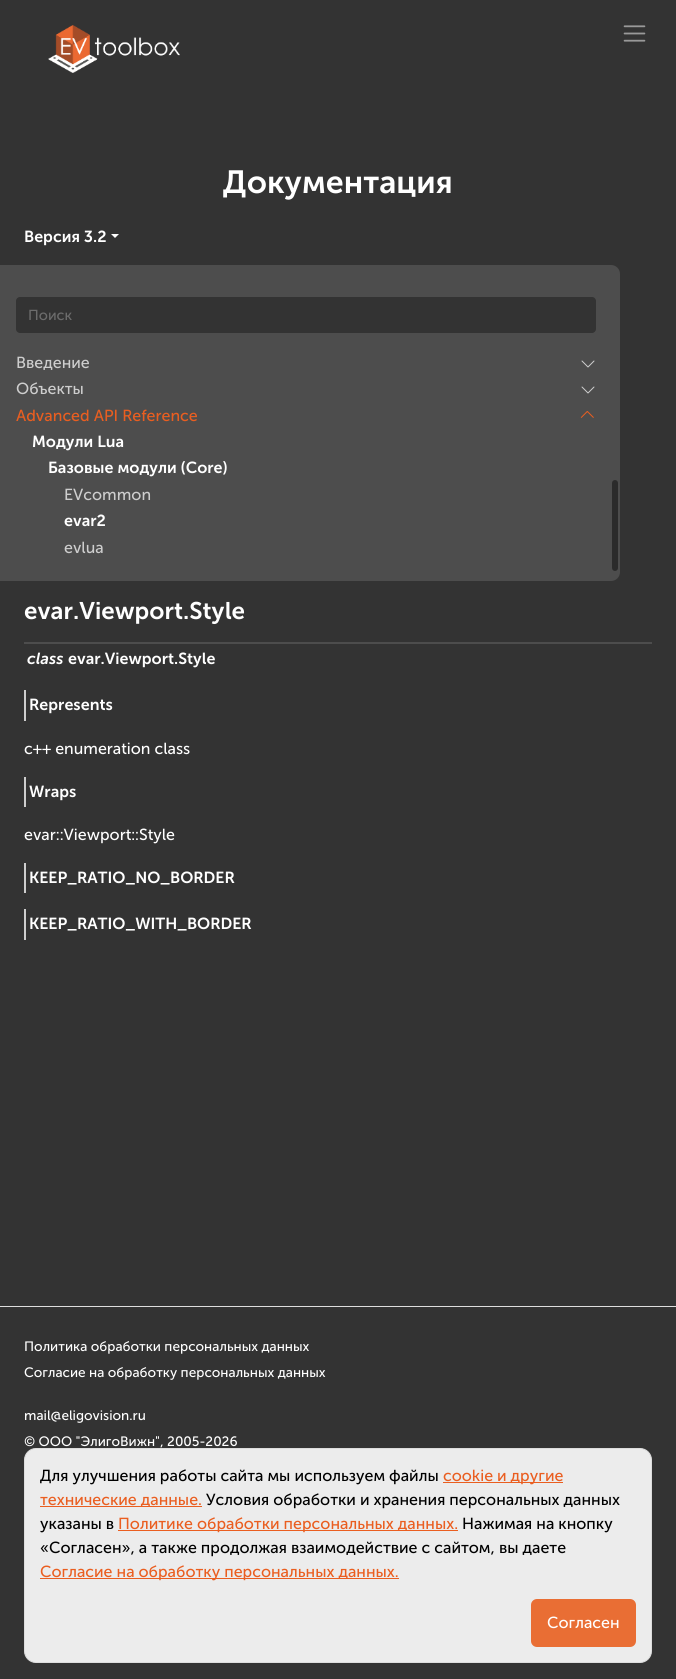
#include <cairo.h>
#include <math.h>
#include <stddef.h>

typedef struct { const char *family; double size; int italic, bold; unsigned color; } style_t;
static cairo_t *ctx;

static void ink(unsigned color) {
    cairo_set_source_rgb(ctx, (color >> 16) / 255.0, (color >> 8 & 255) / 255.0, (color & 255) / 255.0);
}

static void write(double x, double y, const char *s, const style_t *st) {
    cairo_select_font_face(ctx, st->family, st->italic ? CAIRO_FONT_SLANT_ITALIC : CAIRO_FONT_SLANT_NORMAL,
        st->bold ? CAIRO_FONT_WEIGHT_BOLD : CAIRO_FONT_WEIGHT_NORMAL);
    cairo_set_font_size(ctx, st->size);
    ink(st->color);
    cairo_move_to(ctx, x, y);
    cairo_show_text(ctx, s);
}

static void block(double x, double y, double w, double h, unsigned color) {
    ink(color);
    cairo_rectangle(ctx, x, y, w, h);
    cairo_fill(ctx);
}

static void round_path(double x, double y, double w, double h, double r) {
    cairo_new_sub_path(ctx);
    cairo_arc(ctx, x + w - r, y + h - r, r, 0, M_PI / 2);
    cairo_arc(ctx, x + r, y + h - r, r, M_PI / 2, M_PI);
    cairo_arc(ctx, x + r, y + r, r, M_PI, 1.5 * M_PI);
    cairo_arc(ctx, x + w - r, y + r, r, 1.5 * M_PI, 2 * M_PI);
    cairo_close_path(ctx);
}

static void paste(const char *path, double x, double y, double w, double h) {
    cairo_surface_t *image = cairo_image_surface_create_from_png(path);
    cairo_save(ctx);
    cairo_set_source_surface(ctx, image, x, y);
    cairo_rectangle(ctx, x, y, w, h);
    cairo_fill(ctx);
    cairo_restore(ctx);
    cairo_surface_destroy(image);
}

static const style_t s1 = {"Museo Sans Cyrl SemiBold", 32, 0, 0, 0xffffff};
static const style_t s2 = {"Museo Sans Cyrl SemiBold", 16, 0, 0, 0xffffff};
static const style_t s3 = {"Museo Sans Cyrl", 14.5, 0, 0, 0x6c6c6c};
static const style_t s4 = {"Museo Sans Cyrl", 16, 0, 0, 0xcecece};
static const style_t s5 = {"Museo Sans Cyrl", 16, 0, 0, 0xea5e20};
static const style_t s6 = {"Museo Sans Cyrl SemiBold", 24, 0, 0, 0xffffff};
static const style_t s7 = {"Museo Sans Cyrl SemiBold", 16, 1, 0, 0xffffff};
static const style_t s8 = {"Museo Sans Cyrl", 16, 0, 0, 0xffffff};
static const style_t s9 = {"Museo Sans Cyrl", 13.6, 0, 0, 0xffffff};
static const style_t s10 = {"Museo Sans Cyrl", 16, 0, 0, 0x000000};

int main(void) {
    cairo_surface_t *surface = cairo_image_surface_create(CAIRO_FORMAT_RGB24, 676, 1679);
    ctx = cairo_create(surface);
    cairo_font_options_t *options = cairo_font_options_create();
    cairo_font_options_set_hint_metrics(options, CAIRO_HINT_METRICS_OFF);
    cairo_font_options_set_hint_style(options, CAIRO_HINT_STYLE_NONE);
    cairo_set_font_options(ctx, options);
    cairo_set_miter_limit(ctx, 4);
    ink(0x333333);
    cairo_paint(ctx);
    paste("pic1.png", 48, 25, 132, 48);
    paste("pic2.png", 623, 25, 23, 17);
    write(223, 193, "Документация", &s1);
    write(24, 242, "Версия 3.2", &s2);
    cairo_new_path(ctx);
    cairo_move_to(ctx, 111, 234);
    cairo_line_to(ctx, 119, 234);
    cairo_line_to(ctx, 115, 238);
    cairo_close_path(ctx);
    cairo_fill(ctx);
    ink(0x4d4d4d);
    cairo_new_path(ctx);
    cairo_move_to(ctx, 0, 265);
    cairo_line_to(ctx, 611, 265);
    cairo_curve_to(ctx, 616, 265, 620, 269, 620, 274);
    cairo_line_to(ctx, 620, 572);
    cairo_curve_to(ctx, 620, 577, 616, 581, 611, 581);
    cairo_line_to(ctx, 0, 581);
    cairo_close_path(ctx);
    cairo_fill(ctx);
    ink(0x333333);
    round_path(16, 297, 580, 36, 4);
    cairo_fill(ctx);
    write(28, 320, "Поиск", &s3);
    write(16, 368, "Введение", &s4);
    paste("pic3.png", 581, 360, 14, 8);
    write(16, 394, "Объекты", &s4);
    paste("pic3.png", 581, 386, 14, 8);
    write(16, 421, "Advanced API Reference", &s5);
    paste("pic4.png", 580, 411, 14, 7);
    write(32, 447, "Модули Lua", &s2);
    write(48, 473, "Базовые модули (Core)", &s2);
    write(64, 500, "EVcommon", &s4);
    write(64, 526, "evar2", &s2);
    write(64, 553, "evlua", &s4);
    ink(0x2b2b2b);
    round_path(612, 480, 6, 91, 3);
    cairo_fill(ctx);
    write(24, 619, "evar.Viewport.Style", &s6);
    block(24, 642, 628, 2, 0x4d4d4d);
    write(27, 664, "class", &s7);
    write(68, 664, "evar.Viewport.Style", &s2);
    block(24, 690, 2, 31, 0xcecece);
    write(29, 710, "Represents", &s2);
    write(24, 754, "c++ enumeration class", &s8);
    block(24, 777, 2, 30, 0xcecece);
    write(29, 797, "Wraps", &s2);
    write(24, 840, "evar::Viewport::Style", &s8);
    block(24, 863, 2, 30, 0xcecece);
    write(29, 883, "KEEP_RATIO_NO_BORDER", &s2);
    block(24, 909, 2, 31, 0xcecece);
    write(29, 929, "KEEP_RATIO_WITH_BORDER", &s2);
    block(0, 1306, 676, 1, 0xdedede);
    write(24, 1351, "Политика обработки персональных данных", &s9);
    write(24, 1377, "Согласие на обработку персональных данных", &s9);
    write(24, 1420, "mail@eligovision.ru", &s9);
    write(24, 1446, "© ООО \"ЭлигоВижн\", 2005-2026", &s9);
    ink(0xececec);
    round_path(24.5, 1448.5, 627, 214, 11.5);
    cairo_fill_preserve(ctx);
    ink(0xdddddd);
    cairo_set_line_width(ctx, 1);
    cairo_stroke(ctx);
    write(40, 1481, "Для улучшения работы сайта мы используем файлы", &s10);
    block(443, 1482, 120, 1, 0xea5e20);
    write(443, 1481, "cookie и другие", &s5);
    block(40, 1506, 162, 1, 0xea5e20);
    write(40, 1505, "технические данные.", &s5);
    write(206, 1505, "Условия обработки и хранения персональных данных", &s10);
    write(40, 1529, "указаны в", &s10);
    block(118, 1530, 340, 1, 0xea5e20);
    write(118, 1529, "Политике обработки персональных данных.", &s5);
    write(462, 1529, "Нажимая на кнопку", &s10);
    write(40, 1553, "«Согласен», а также продолжая взаимодействие с сайтом, вы даете", &s10);
    block(40, 1578, 359, 1, 0xea5e20);
    write(40, 1577, "Согласие на обработку персональных данных.", &s5);
    ink(0xe96e34);
    round_path(531, 1599, 105, 48, 6);
    cairo_fill(ctx);
    write(547, 1628, "Согласен", &s8);
    cairo_surface_write_to_png(surface, "screenshot.png");
    cairo_font_options_destroy(options);
    cairo_destroy(ctx);
    cairo_surface_destroy(surface);
    return 0;
}
